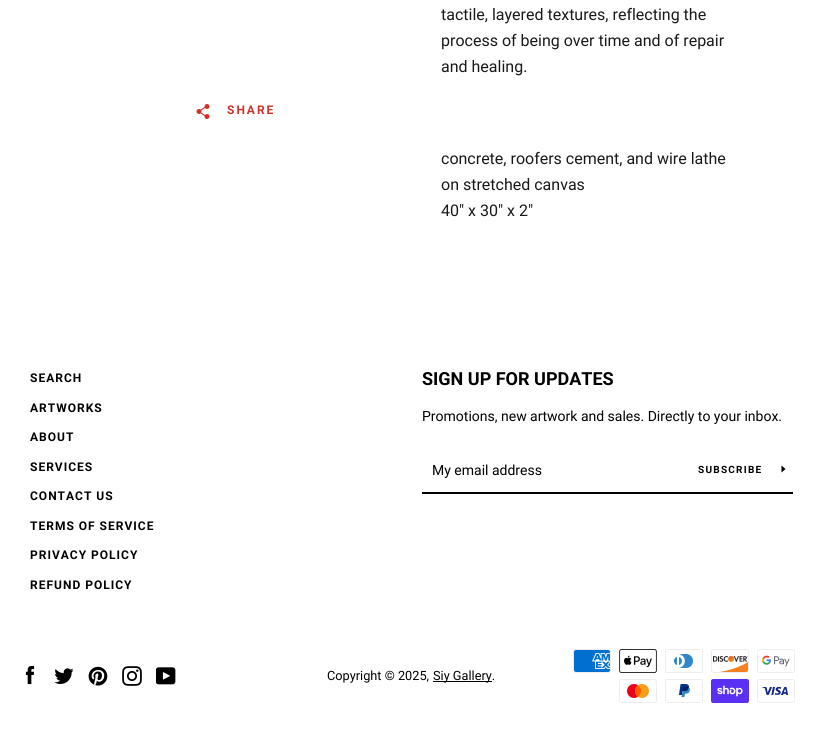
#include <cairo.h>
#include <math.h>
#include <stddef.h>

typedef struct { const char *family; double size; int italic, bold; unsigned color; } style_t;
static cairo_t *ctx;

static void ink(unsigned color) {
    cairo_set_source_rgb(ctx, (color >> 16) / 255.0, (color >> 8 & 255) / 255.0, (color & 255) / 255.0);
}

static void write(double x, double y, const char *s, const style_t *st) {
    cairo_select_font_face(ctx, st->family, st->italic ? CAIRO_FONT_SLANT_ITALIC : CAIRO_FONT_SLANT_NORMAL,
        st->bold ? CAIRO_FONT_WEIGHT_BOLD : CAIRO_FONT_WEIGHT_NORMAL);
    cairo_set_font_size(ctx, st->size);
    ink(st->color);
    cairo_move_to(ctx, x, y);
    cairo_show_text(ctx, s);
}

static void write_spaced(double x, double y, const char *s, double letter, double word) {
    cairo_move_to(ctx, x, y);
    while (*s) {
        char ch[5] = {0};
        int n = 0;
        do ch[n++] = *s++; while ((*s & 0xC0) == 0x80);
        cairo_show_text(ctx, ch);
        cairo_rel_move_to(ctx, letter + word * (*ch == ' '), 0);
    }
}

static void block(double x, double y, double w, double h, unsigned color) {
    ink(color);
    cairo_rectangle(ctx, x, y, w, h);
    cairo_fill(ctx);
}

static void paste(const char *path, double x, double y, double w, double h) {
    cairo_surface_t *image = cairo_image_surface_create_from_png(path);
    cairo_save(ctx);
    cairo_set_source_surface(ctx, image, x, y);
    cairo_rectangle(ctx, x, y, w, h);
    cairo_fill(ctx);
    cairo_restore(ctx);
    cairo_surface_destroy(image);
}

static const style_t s1 = {"Roboto", 16, 0, 0, 0x191919};
static const style_t s2 = {"Roboto", 18, 0, 1, 0x000000};
static const style_t s3 = {"Roboto", 14, 0, 0, 0x000000};
static const style_t s4 = {"Roboto", 12.75, 0, 0, 0x000000};

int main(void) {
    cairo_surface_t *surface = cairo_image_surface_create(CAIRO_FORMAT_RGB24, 823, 745);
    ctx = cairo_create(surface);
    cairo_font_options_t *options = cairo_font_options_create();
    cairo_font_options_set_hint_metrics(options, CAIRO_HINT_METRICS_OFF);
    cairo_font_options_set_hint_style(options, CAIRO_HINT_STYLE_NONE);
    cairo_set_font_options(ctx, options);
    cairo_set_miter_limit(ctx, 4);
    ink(0xffffff);
    cairo_paint(ctx);
    paste("pic1.png", 196, 104, 14, 15);
    cairo_select_font_face(ctx, "Roboto", CAIRO_FONT_SLANT_NORMAL, CAIRO_FONT_WEIGHT_BOLD);
    cairo_set_font_size(ctx, 12);
    ink(0xd22f25);
    write_spaced(227, 114, "SHARE", 2, 0);
    write(441, 20, "tactile, layered textures, reflecting the", &s1);
    write(441, 46, "process of being over time and of repair", &s1);
    write(441, 72, "and healing.", &s1);
    write(441, 164, "concrete, roofers cement, and wire lathe", &s1);
    write(441, 190, "on stretched canvas", &s1);
    write(441, 216, "40\" x 30\" x 2\"", &s1);
    cairo_select_font_face(ctx, "Roboto", CAIRO_FONT_SLANT_NORMAL, CAIRO_FONT_WEIGHT_BOLD);
    cairo_set_font_size(ctx, 12);
    ink(0x000000);
    write_spaced(30, 382, "SEARCH", 1, 0);
    write_spaced(30, 412, "ARTWORKS", 1, 0);
    write_spaced(30, 441, "ABOUT", 1, 0);
    write_spaced(30, 471, "SERVICES", 1, 0);
    write_spaced(30, 500, "CONTACT US", 1, 0);
    write_spaced(30, 530, "TERMS OF SERVICE", 1, 0);
    write_spaced(30, 559, "PRIVACY POLICY", 1, 0);
    write_spaced(30, 589, "REFUND POLICY", 1, 0);
    write(422, 385, "SIGN UP FOR UPDATES", &s2);
    write(422, 421, "Promotions, new artwork and sales. Directly to your inbox.", &s3);
    block(422, 492, 371, 2, 0x000000);
    write(432, 475, "My email address", &s3);
    cairo_select_font_face(ctx, "Roboto", CAIRO_FONT_SLANT_NORMAL, CAIRO_FONT_WEIGHT_BOLD);
    cairo_set_font_size(ctx, 10);
    write_spaced(698, 473, "SUBSCRIBE", 1.25, 0);
    cairo_new_path(ctx);
    cairo_move_to(ctx, 785.5, 469);
    cairo_line_to(ctx, 781.5, 472.5);
    cairo_line_to(ctx, 781.5, 465.5);
    cairo_close_path(ctx);
    cairo_fill(ctx);
    paste("pic2.png", 25, 666, 10, 19);
    paste("pic3.png", 54, 668, 20, 16);
    paste("pic4.png", 88, 666, 20, 20);
    paste("pic5.png", 122, 666, 20, 20);
    paste("pic6.png", 156, 667, 20, 18);
    write(327, 680, "Copyright © 2025,", &s4);
    block(433, 681, 59, 1, 0x000000);
    write(433, 680, "Siy Gallery.", &s4);
    paste("pic7.png", 573, 649, 38, 24);
    paste("pic8.png", 619, 649, 38, 24);
    paste("pic9.png", 665, 649, 38, 24);
    paste("pic10.png", 711, 649, 38, 24);
    paste("pic11.png", 757, 649, 38, 24);
    paste("pic12.png", 619, 679, 38, 24);
    paste("pic13.png", 665, 679, 38, 24);
    paste("pic14.png", 711, 679, 38, 24);
    paste("pic15.png", 757, 679, 38, 24);
    cairo_surface_write_to_png(surface, "screenshot.png");
    cairo_font_options_destroy(options);
    cairo_destroy(ctx);
    cairo_surface_destroy(surface);
    return 0;
}
